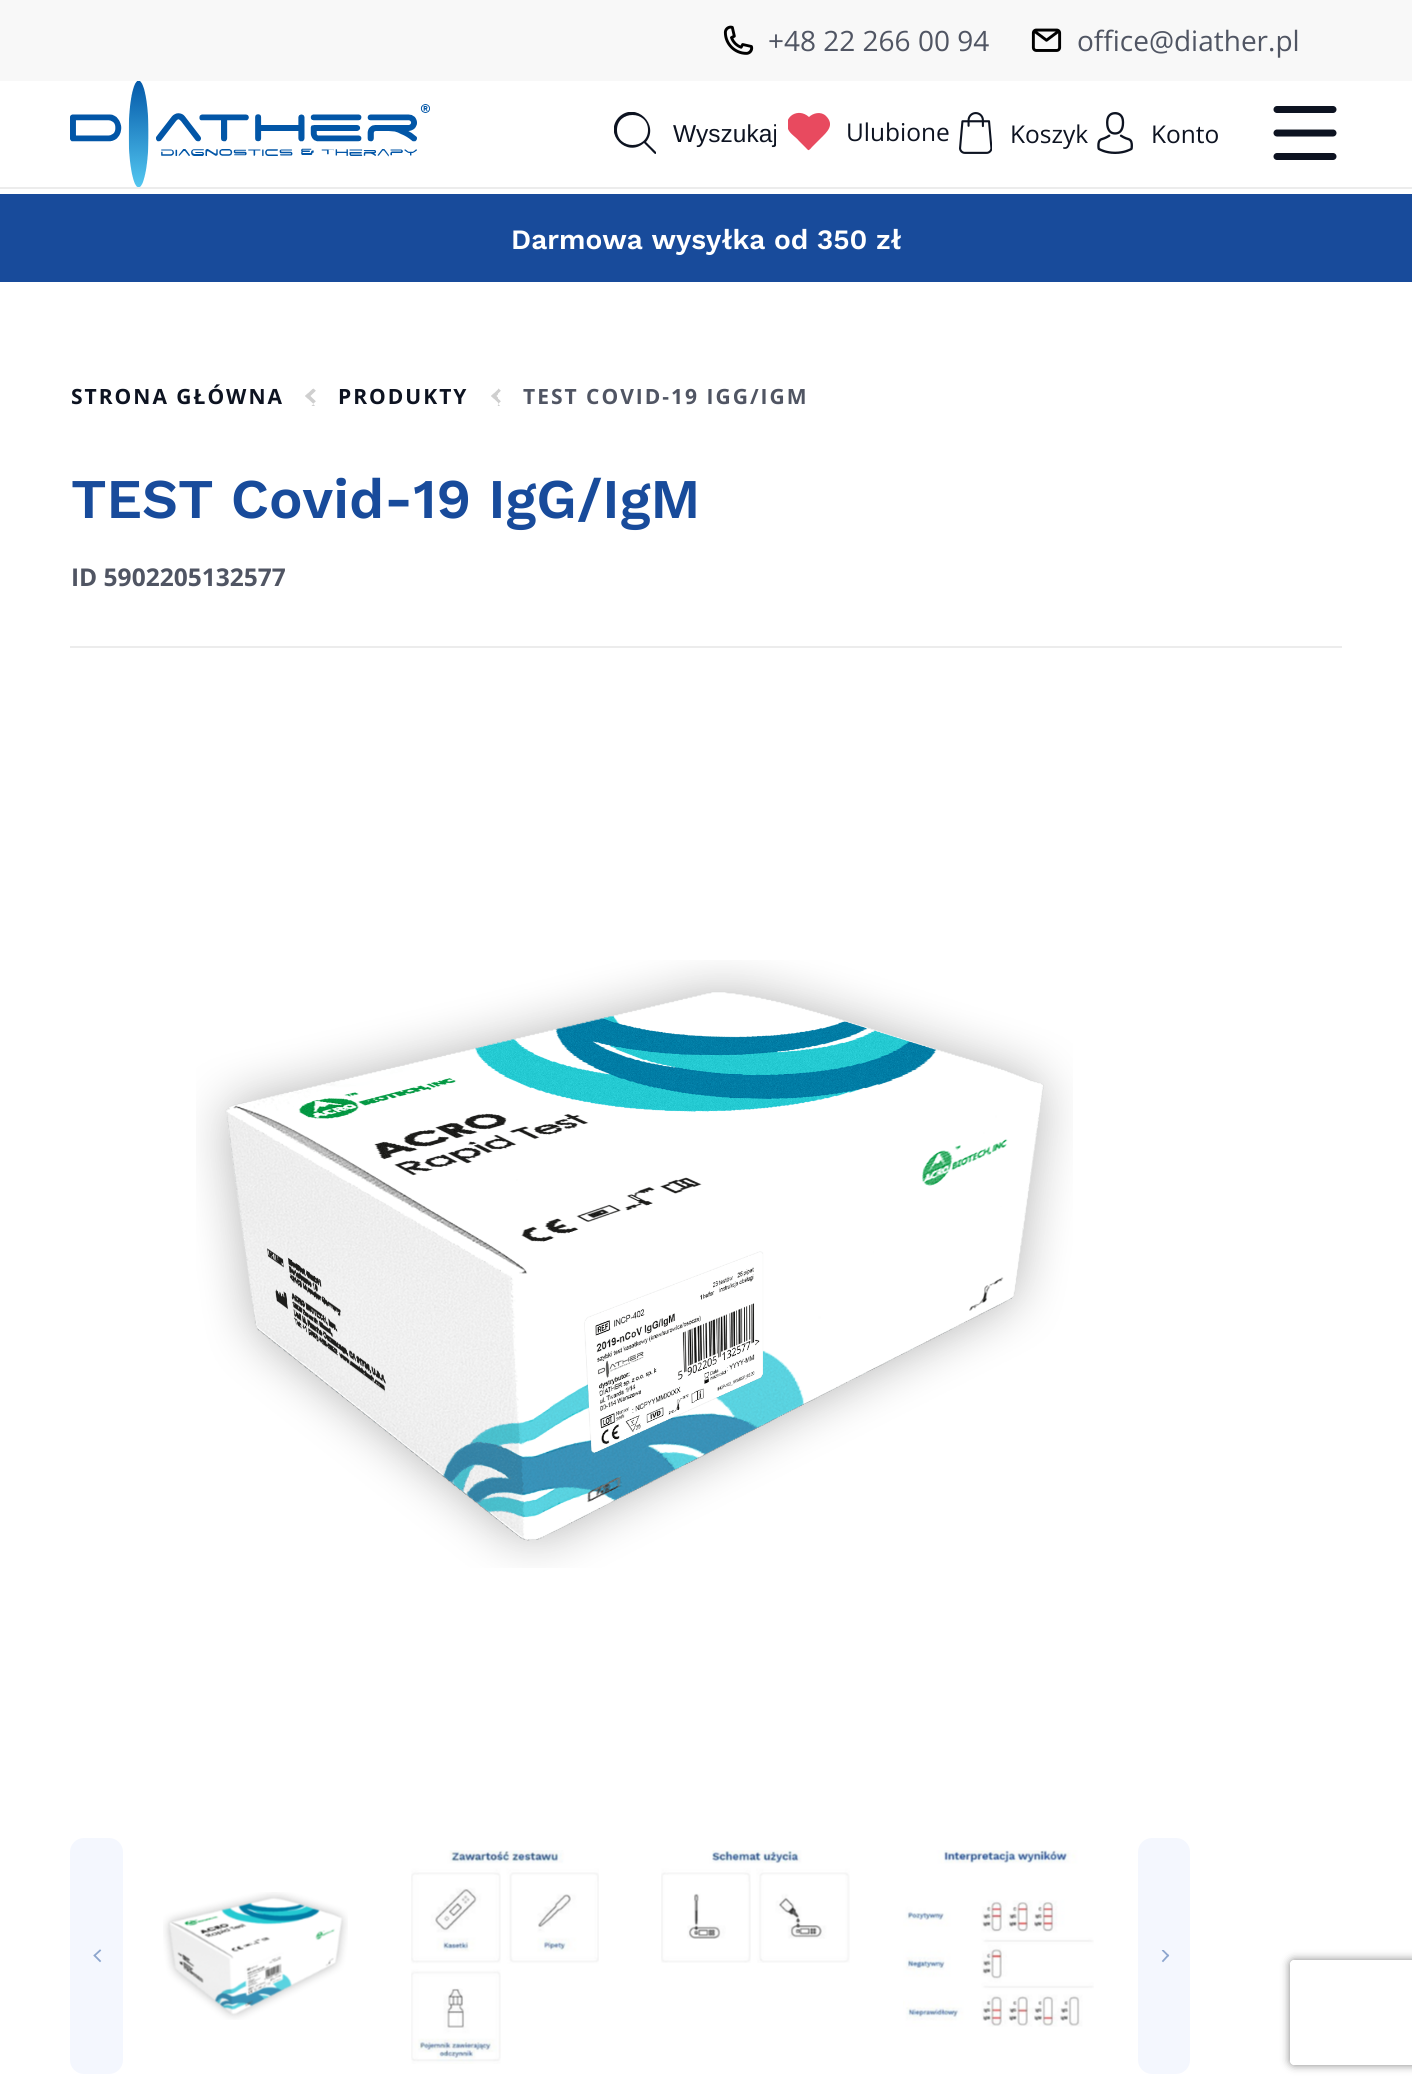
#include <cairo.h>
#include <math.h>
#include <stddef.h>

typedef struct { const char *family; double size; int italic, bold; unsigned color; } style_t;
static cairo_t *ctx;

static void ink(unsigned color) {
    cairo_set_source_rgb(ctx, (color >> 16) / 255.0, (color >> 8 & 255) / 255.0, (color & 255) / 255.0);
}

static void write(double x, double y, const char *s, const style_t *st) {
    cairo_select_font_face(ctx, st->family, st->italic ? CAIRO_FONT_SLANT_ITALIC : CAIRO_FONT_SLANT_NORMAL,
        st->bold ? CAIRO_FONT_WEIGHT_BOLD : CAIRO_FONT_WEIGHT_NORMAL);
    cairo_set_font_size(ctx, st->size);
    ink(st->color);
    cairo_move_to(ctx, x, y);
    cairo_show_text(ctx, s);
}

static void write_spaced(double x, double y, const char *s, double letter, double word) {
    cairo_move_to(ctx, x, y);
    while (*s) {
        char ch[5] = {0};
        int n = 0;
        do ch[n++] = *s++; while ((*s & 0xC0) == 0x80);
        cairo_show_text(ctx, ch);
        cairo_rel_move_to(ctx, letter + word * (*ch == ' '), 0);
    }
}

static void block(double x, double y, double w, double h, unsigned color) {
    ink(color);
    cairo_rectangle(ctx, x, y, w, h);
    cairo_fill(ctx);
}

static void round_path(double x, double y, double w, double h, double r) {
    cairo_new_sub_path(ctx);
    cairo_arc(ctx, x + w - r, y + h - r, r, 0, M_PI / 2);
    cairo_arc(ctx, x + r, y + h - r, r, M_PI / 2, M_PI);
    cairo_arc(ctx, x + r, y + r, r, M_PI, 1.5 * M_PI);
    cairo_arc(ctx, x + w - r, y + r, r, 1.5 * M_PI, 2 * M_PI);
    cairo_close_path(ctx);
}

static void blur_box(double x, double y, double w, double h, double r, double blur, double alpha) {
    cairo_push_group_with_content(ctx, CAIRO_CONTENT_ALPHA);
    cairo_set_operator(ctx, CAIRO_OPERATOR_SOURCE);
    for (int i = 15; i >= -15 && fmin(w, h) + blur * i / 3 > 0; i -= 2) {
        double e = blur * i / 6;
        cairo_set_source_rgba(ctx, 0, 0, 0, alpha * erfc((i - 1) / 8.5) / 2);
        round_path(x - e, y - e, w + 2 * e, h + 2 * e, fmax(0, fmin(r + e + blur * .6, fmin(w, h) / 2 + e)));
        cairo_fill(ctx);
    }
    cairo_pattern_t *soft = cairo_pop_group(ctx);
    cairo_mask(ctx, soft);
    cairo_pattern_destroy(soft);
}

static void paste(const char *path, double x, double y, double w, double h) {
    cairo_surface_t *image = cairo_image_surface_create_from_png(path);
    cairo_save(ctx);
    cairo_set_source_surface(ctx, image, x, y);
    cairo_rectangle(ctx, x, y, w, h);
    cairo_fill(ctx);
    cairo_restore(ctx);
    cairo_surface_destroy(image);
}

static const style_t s1 = {"Open Sans", 28, 0, 0, 0x505563};
static const style_t s2 = {"Liberation Sans", 24.5, 0, 0, 0x0d1321};
static const style_t s3 = {"Open Sans", 24.5, 0, 0, 0x0d1321};
static const style_t s4 = {"Work Sans SemiBold", 28, 0, 0, 0xffffff};
static const style_t s5 = {"Work Sans SemiBold", 56, 0, 0, 0x184b9b};
static const style_t s6 = {"Open Sans", 24.5, 0, 1, 0x505563};

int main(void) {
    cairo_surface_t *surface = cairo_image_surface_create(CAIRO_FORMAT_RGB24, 1412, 2089);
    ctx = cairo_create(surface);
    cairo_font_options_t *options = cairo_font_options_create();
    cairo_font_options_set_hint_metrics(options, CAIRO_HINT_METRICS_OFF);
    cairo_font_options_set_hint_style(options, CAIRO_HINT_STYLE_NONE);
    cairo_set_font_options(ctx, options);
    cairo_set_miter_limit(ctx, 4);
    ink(0xffffff);
    cairo_paint(ctx);
    block(0, 187, 1412, 2, 0xececec);
    block(0, 0, 1412, 81, 0xf8f8f8);
    paste("pic1.png", 723, 25, 31, 30);
    write(768, 51, "+48 22 266 00 94", &s1);
    paste("pic2.png", 1031, 28, 31, 24);
    write(1077, 51, "office@diather.pl", &s1);
    paste("pic3.png", 70, 81, 360, 106);
    cairo_save(ctx);
    cairo_rectangle(ctx, 614, 112, 42, 42);
    cairo_clip(ctx);
    ink(0x0d1321);
    cairo_new_path(ctx);
    cairo_move_to(ctx, 617, 130);
    cairo_curve_to(ctx, 617, 110, 648, 110, 648, 130);
    cairo_curve_to(ctx, 648, 150, 617, 150, 617, 130);
    cairo_close_path(ctx);
    cairo_move_to(ctx, 656, 152);
    cairo_line_to(ctx, 646, 142);
    cairo_curve_to(ctx, 660, 125, 636, 101, 619, 117);
    cairo_curve_to(ctx, 603, 134, 627, 158, 644, 143);
    cairo_line_to(ctx, 651, 150);
    cairo_curve_to(ctx, 653, 152, 656, 156, 656, 153);
    cairo_close_path(ctx);
    cairo_fill(ctx);
    cairo_restore(ctx);
    write(673, 142, "Wyszukaj", &s2);
    cairo_save(ctx);
    cairo_rectangle(ctx, 788, 112, 42, 39);
    cairo_clip(ctx);
    ink(0xe84a5f);
    cairo_new_path(ctx);
    cairo_move_to(ctx, 826, 116);
    cairo_curve_to(ctx, 821, 111, 813, 113, 809, 117);
    cairo_curve_to(ctx, 798, 107, 783, 117, 788, 129);
    cairo_curve_to(ctx, 790, 134, 796, 137, 799, 141);
    cairo_line_to(ctx, 808, 150);
    cairo_curve_to(ctx, 809, 151, 812, 147, 812, 147);
    cairo_line_to(ctx, 821, 138);
    cairo_curve_to(ctx, 827, 132, 835, 125, 826, 116);
    cairo_close_path(ctx);
    cairo_fill(ctx);
    cairo_restore(ctx);
    write(846, 141, "Ulubione", &s3);
    paste("pic4.png", 959, 112, 33, 42);
    write(1010, 143, "Koszyk", &s3);
    paste("pic5.png", 1097, 112, 36, 42);
    write(1151, 143, "Konto", &s3);
    cairo_new_path(ctx);
    cairo_move_to(ctx, 1277, 109.5);
    cairo_line_to(ctx, 1333, 109.5);
    cairo_set_line_width(ctx, 7);
    cairo_set_line_cap(ctx, CAIRO_LINE_CAP_ROUND);
    cairo_set_line_join(ctx, CAIRO_LINE_JOIN_ROUND);
    cairo_stroke(ctx);
    cairo_new_path(ctx);
    cairo_move_to(ctx, 1277, 133);
    cairo_line_to(ctx, 1333, 133);
    cairo_stroke(ctx);
    cairo_new_path(ctx);
    cairo_move_to(ctx, 1277, 156.5);
    cairo_line_to(ctx, 1333, 156.5);
    cairo_stroke(ctx);
    block(0, 194, 1412, 88, 0x184b9b);
    write(511, 249, "Darmowa wysyłka od 350 zł", &s4);
    cairo_select_font_face(ctx, "Open Sans", CAIRO_FONT_SLANT_NORMAL, CAIRO_FONT_WEIGHT_BOLD);
    cairo_set_font_size(ctx, 21);
    ink(0x0d1321);
    write_spaced(71, 404, "STRONA GŁÓWNA", 2, 0);
    paste("pic6.png", 305, 388, 11, 18);
    write_spaced(338, 404, "PRODUKTY", 2, 0);
    paste("pic7.png", 491, 388, 10, 18);
    ink(0x505563);
    write_spaced(523, 404, "TEST COVID-19 IGG/IGM", 2, 0);
    block(70, 646, 1272, 2, 0xececec);
    write(71, 518, "TEST Covid-19 IgG/IgM", &s5);
    write(71, 586, "ID 5902205132577", &s6);
    paste("pic8.png", 196, 960, 877, 608);
    ink(0xf4f7fe);
    round_path(70, 1838, 53, 236, 14);
    cairo_fill(ctx);
    cairo_new_path(ctx);
    cairo_move_to(ctx, 100, 1950.5);
    cairo_line_to(ctx, 94.5, 1955.5);
    cairo_move_to(ctx, 94.5, 1955.5);
    cairo_line_to(ctx, 100, 1961);
    ink(0x8ca5cd);
    cairo_set_line_width(ctx, 1.8);
    cairo_set_line_cap(ctx, CAIRO_LINE_CAP_SQUARE);
    cairo_set_line_join(ctx, CAIRO_LINE_JOIN_MITER);
    cairo_stroke(ctx);
    paste("pic9.png", 163, 1892, 185, 128);
    paste("pic10.png", 411, 1850, 188, 214);
    paste("pic11.png", 661, 1850, 189, 113);
    paste("pic12.png", 903, 1850, 191, 177);
    ink(0xf4f7fe);
    round_path(1138, 1838, 52, 236, 14);
    cairo_fill(ctx);
    cairo_new_path(ctx);
    cairo_move_to(ctx, 1163, 1961);
    cairo_line_to(ctx, 1168, 1955.5);
    ink(0x8ca5cd);
    cairo_stroke(ctx);
    cairo_save(ctx);
    cairo_rectangle(ctx, 1160, 1950, 9, 12);
    cairo_clip(ctx);
    cairo_new_path(ctx);
    cairo_move_to(ctx, 1168, 1955.5);
    cairo_line_to(ctx, 1163, 1950.5);
    cairo_stroke(ctx);
    cairo_restore(ctx);
    cairo_save(ctx);
    cairo_set_fill_rule(ctx, CAIRO_FILL_RULE_EVEN_ODD);
    cairo_new_path(ctx);
    cairo_move_to(ctx, 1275, 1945);
    cairo_line_to(ctx, 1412, 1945);
    cairo_line_to(ctx, 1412, 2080);
    cairo_line_to(ctx, 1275, 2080);
    cairo_close_path(ctx);
    cairo_move_to(ctx, 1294, 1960);
    cairo_line_to(ctx, 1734, 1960);
    cairo_curve_to(ctx, 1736, 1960, 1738, 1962, 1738, 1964);
    cairo_line_to(ctx, 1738, 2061);
    cairo_curve_to(ctx, 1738, 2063, 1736, 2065, 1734, 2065);
    cairo_line_to(ctx, 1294, 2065);
    cairo_curve_to(ctx, 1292, 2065, 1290, 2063, 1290, 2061);
    cairo_line_to(ctx, 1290, 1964);
    cairo_curve_to(ctx, 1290, 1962, 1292, 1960, 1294, 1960);
    cairo_close_path(ctx);
    cairo_clip(ctx);
    ink(0x808080);
    blur_box(1290, 1960, 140, 105, 4, 4.5, 1);
    cairo_restore(ctx);
    cairo_surface_write_to_png(surface, "screenshot.png");
    cairo_font_options_destroy(options);
    cairo_destroy(ctx);
    cairo_surface_destroy(surface);
    return 0;
}
